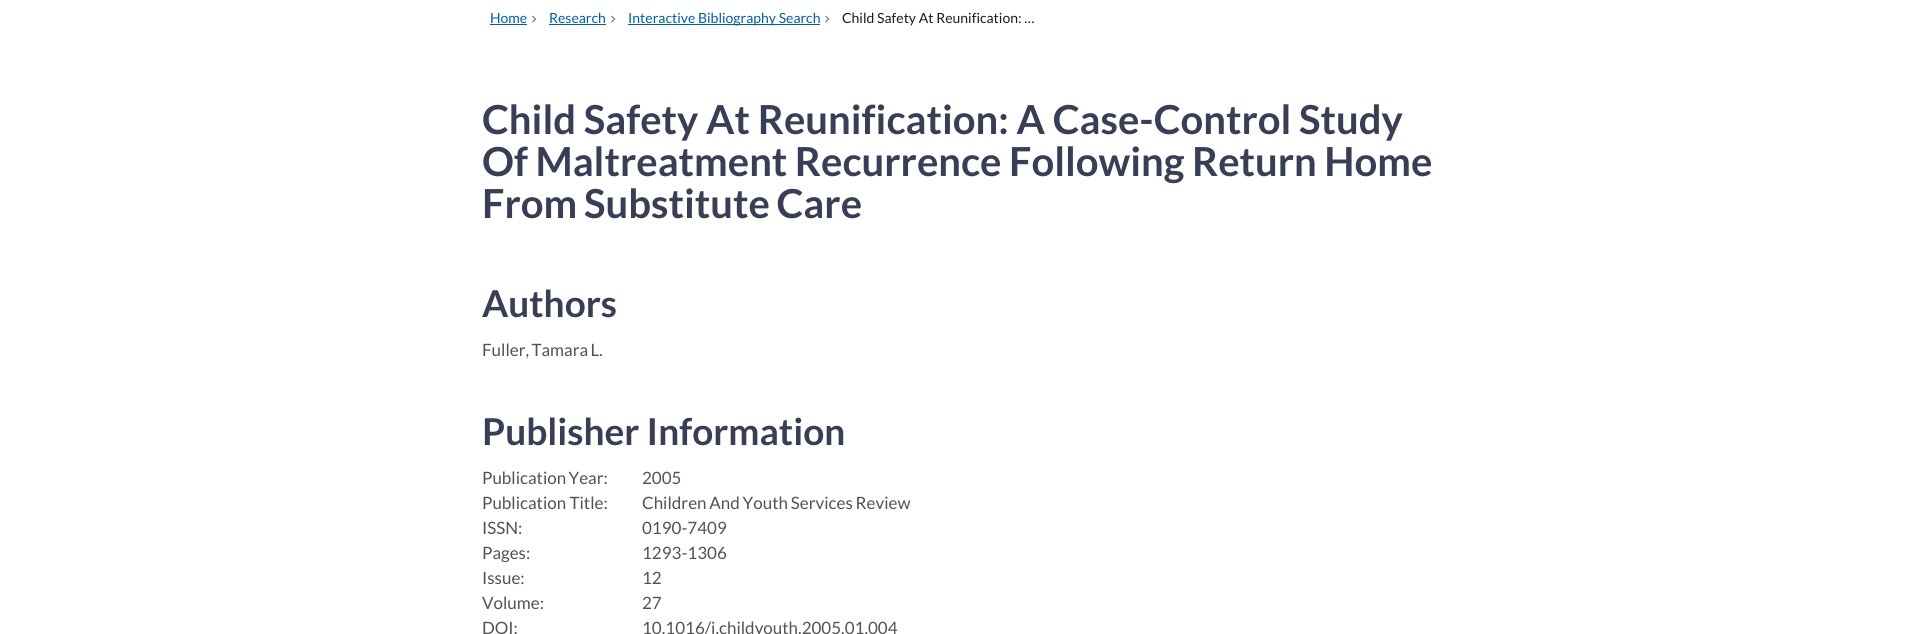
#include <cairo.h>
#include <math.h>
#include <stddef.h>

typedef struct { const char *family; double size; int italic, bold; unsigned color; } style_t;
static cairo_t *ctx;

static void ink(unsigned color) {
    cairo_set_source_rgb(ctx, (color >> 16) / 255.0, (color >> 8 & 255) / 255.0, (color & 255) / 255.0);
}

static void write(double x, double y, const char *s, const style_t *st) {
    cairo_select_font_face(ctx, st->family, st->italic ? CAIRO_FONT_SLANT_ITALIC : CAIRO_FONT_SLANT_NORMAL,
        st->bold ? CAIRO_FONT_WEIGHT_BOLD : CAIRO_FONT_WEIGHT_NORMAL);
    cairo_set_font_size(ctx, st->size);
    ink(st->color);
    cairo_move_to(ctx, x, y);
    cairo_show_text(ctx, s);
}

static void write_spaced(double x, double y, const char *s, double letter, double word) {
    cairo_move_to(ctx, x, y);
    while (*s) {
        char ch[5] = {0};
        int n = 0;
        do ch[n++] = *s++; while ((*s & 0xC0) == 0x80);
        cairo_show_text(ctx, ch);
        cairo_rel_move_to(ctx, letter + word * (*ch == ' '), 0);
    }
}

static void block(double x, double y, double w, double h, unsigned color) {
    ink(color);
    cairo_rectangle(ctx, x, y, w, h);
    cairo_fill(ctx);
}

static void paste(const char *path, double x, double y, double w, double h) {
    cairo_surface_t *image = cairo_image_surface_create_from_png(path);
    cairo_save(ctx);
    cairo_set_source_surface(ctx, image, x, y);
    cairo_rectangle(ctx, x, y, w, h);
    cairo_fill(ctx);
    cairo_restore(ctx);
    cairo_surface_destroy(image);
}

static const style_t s1 = {"Lato", 14, 0, 0, 0x005ea2};
static const style_t s2 = {"Lato", 14, 0, 0, 0x1b1b1b};
static const style_t s3 = {"Lato", 40, 0, 1, 0x383e56};
static const style_t s4 = {"Lato", 37, 0, 1, 0x383e56};
static const style_t s5 = {"Lato", 17, 0, 0, 0x525252};

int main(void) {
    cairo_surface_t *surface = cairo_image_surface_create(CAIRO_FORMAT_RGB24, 1924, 634);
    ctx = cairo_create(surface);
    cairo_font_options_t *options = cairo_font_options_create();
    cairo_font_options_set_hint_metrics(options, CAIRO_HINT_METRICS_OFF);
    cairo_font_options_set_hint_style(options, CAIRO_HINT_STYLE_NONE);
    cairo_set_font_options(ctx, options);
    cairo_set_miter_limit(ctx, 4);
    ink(0xffffff);
    cairo_paint(ctx);
    write(490, 23, "Home", &s1);
    block(490, 24, 37, 1, 0x005ea2);
    paste("pic1.png", 532, 15, 5, 8);
    write(549, 23, "Research", &s1);
    block(549, 24, 57, 1, 0x005ea2);
    paste("pic1.png", 611, 15, 5, 8);
    block(628, 24, 192, 1, 0x005ea2);
    write(628, 23, "Interactive Bibliography Search", &s1);
    paste("pic1.png", 825, 15, 5, 8);
    write(842, 23, "Child Safety At Reunification: …", &s2);
    write(482, 134, "Child Safety At Reunification: A Case-Control Study", &s3);
    write_spaced(482, 176, "Of Maltreatment Recurrence Following Return Home", 0, -0.25);
    write_spaced(482, 218, "From Substitute Care", 0, -1);
    write(482, 317, "Authors", &s4);
    cairo_select_font_face(ctx, "Lato", CAIRO_FONT_SLANT_NORMAL, CAIRO_FONT_WEIGHT_NORMAL);
    cairo_set_font_size(ctx, 17);
    ink(0x525252);
    write_spaced(482, 356, "Fuller, Tamara L.", 0, -1);
    write(482, 445, "Publisher Information", &s4);
    cairo_select_font_face(ctx, "Lato", CAIRO_FONT_SLANT_NORMAL, CAIRO_FONT_WEIGHT_NORMAL);
    cairo_set_font_size(ctx, 17);
    ink(0x525252);
    write_spaced(482, 484, "Publication Year:", 0, -1);
    write(642, 484, "2005", &s5);
    write(482, 509, "Publication Title:", &s5);
    write_spaced(642, 509, "Children And Youth Services Review", 0, -0.5);
    write(482, 534, "ISSN:", &s5);
    write(642, 534, "0190-7409", &s5);
    write(482, 559, "Pages:", &s5);
    write(642, 559, "1293-1306", &s5);
    write(482, 584, "Issue:", &s5);
    write(642, 584, "12", &s5);
    write(482, 609, "Volume:", &s5);
    write(642, 609, "27", &s5);
    write(482, 634, "DOI:", &s5);
    write(642, 634, "10.1016/j.childyouth.2005.01.004", &s5);
    cairo_surface_write_to_png(surface, "screenshot.png");
    cairo_font_options_destroy(options);
    cairo_destroy(ctx);
    cairo_surface_destroy(surface);
    return 0;
}
